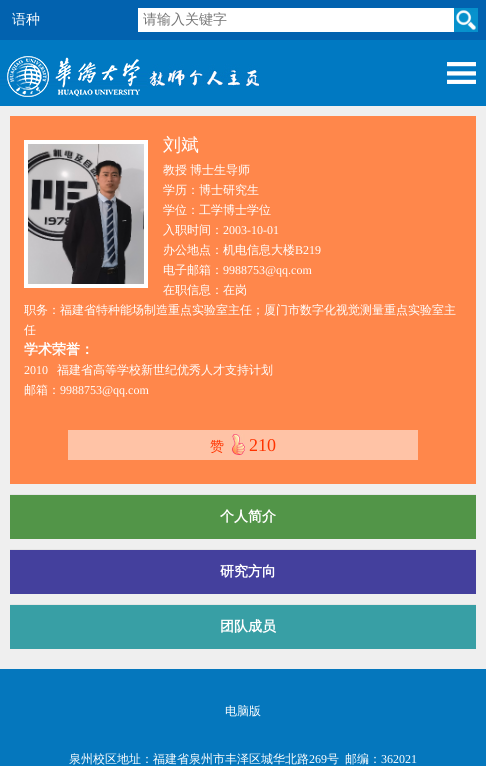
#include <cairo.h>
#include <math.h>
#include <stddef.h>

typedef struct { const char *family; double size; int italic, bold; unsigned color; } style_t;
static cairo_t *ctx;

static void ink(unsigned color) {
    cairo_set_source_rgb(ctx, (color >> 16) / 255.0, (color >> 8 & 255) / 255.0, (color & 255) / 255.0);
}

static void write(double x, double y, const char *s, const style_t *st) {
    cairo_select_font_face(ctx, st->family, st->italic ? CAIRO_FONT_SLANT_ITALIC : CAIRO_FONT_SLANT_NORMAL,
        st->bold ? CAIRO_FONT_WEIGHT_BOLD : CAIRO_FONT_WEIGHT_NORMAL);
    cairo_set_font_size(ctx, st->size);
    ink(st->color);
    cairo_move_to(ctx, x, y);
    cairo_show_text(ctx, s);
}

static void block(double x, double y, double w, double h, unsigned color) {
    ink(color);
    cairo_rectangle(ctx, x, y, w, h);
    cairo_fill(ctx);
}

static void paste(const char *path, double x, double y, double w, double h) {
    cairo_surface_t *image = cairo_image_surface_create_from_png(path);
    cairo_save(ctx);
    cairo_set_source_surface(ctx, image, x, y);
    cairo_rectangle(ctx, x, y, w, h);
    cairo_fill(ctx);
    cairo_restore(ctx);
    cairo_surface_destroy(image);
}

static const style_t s1 = {"WenQuanYi Zen Hei Medium", 14, 0, 0, 0xffffff};
static const style_t s2 = {"WenQuanYi Zen Hei Medium", 14, 0, 0, 0x757575};
static const style_t s3 = {"WenQuanYi Zen Hei Medium", 18, 0, 0, 0xffffff};
static const style_t s4 = {"WenQuanYi Zen Hei Medium", 12, 0, 0, 0xffffff};
static const style_t s5 = {"Liberation Serif", 12, 0, 0, 0xffffff};
static const style_t s6 = {"WenQuanYi Zen Hei", 14, 0, 1, 0xffffff};
static const style_t s7 = {"WenQuanYi Zen Hei Medium", 14, 0, 0, 0xff3300};
static const style_t s8 = {"Liberation Serif", 18, 0, 0, 0xff3300};

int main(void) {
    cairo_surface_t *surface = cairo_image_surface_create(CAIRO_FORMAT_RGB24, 486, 766);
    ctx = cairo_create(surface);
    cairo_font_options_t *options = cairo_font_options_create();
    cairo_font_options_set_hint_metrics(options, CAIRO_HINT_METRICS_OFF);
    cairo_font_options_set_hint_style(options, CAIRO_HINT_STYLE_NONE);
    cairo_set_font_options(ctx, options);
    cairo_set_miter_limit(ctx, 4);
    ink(0xefefef);
    cairo_paint(ctx);
    block(0, 0, 486, 40, 0x0262af);
    write(12, 24, "语种", &s1);
    block(138, 8, 316, 24, 0xffffff);
    write(143, 24, "请输入关键字", &s2);
    paste("pic1.png", 454, 8, 24, 24);
    block(0, 40, 486, 66, 0x0079c2);
    paste("pic2.png", 0, 56, 259, 41);
    paste("pic3.png", 447, 62, 29, 22);
    block(10, 116, 466, 368, 0xff874b);
    cairo_rectangle(ctx, 26, 142, 120, 144);
    ink(0xffffff);
    cairo_set_line_width(ctx, 4);
    cairo_stroke(ctx);
    paste("pic4.png", 28, 144, 116, 140);
    write(163, 151, "刘斌", &s3);
    write(163, 174, "教授", &s4);
    write(190, 174, "博士生导师", &s4);
    write(163, 194, "学历：博士研究生", &s4);
    write(163, 214, "学位：工学博士学位", &s4);
    write(163, 234, "入职时间：", &s4);
    write(223, 234, "2003-10-01", &s5);
    write(163, 254, "办公地点：机电信息大楼", &s4);
    write(295, 254, "B219", &s5);
    write(163, 274, "电子邮箱：", &s4);
    write(223, 274, "9988753@qq.com", &s5);
    write(163, 294, "在职信息：在岗", &s4);
    write(24, 314, "职务：福建省特种能场制造重点实验室主任；厦门市数字化视觉测量重点实验室主", &s4);
    write(24, 334, "任", &s4);
    write(24, 354, "学术荣誉：", &s6);
    write(24, 374, "2010", &s5);
    write(57, 374, "福建省高等学校新世纪优秀人才支持计划", &s4);
    write(24, 394, "邮箱：", &s4);
    write(60, 394, "9988753@qq.com", &s5);
    block(68, 430, 350, 30, 0xffc3a6);
    write(210, 451, "赞", &s7);
    paste("pic5.png", 230, 434, 15, 21);
    write(249, 451, "210", &s8);
    block(10, 495, 466, 44, 0x529548);
    block(10, 494, 466, 1, 0xe5e5e5);
    write(220, 521, "个人简介", &s6);
    block(10, 550, 466, 44, 0x44409d);
    block(10, 549, 466, 1, 0xe5e5e5);
    write(220, 576, "研究方向", &s6);
    block(10, 605, 466, 44, 0x389fa5);
    block(10, 604, 466, 1, 0xe5e5e5);
    write(220, 631, "团队成员", &s6);
    block(0, 669, 486, 97, 0x0577bd);
    write(225, 715, "电脑版", &s4);
    write(69, 763, "泉州校区地址：福建省泉州市丰泽区城华北路", &s4);
    write(309, 763, "269", &s5);
    write(327, 763, "号", &s4);
    write(345, 763, "邮编：", &s4);
    write(381, 763, "362021", &s5);
    cairo_surface_write_to_png(surface, "screenshot.png");
    cairo_font_options_destroy(options);
    cairo_destroy(ctx);
    cairo_surface_destroy(surface);
    return 0;
}
